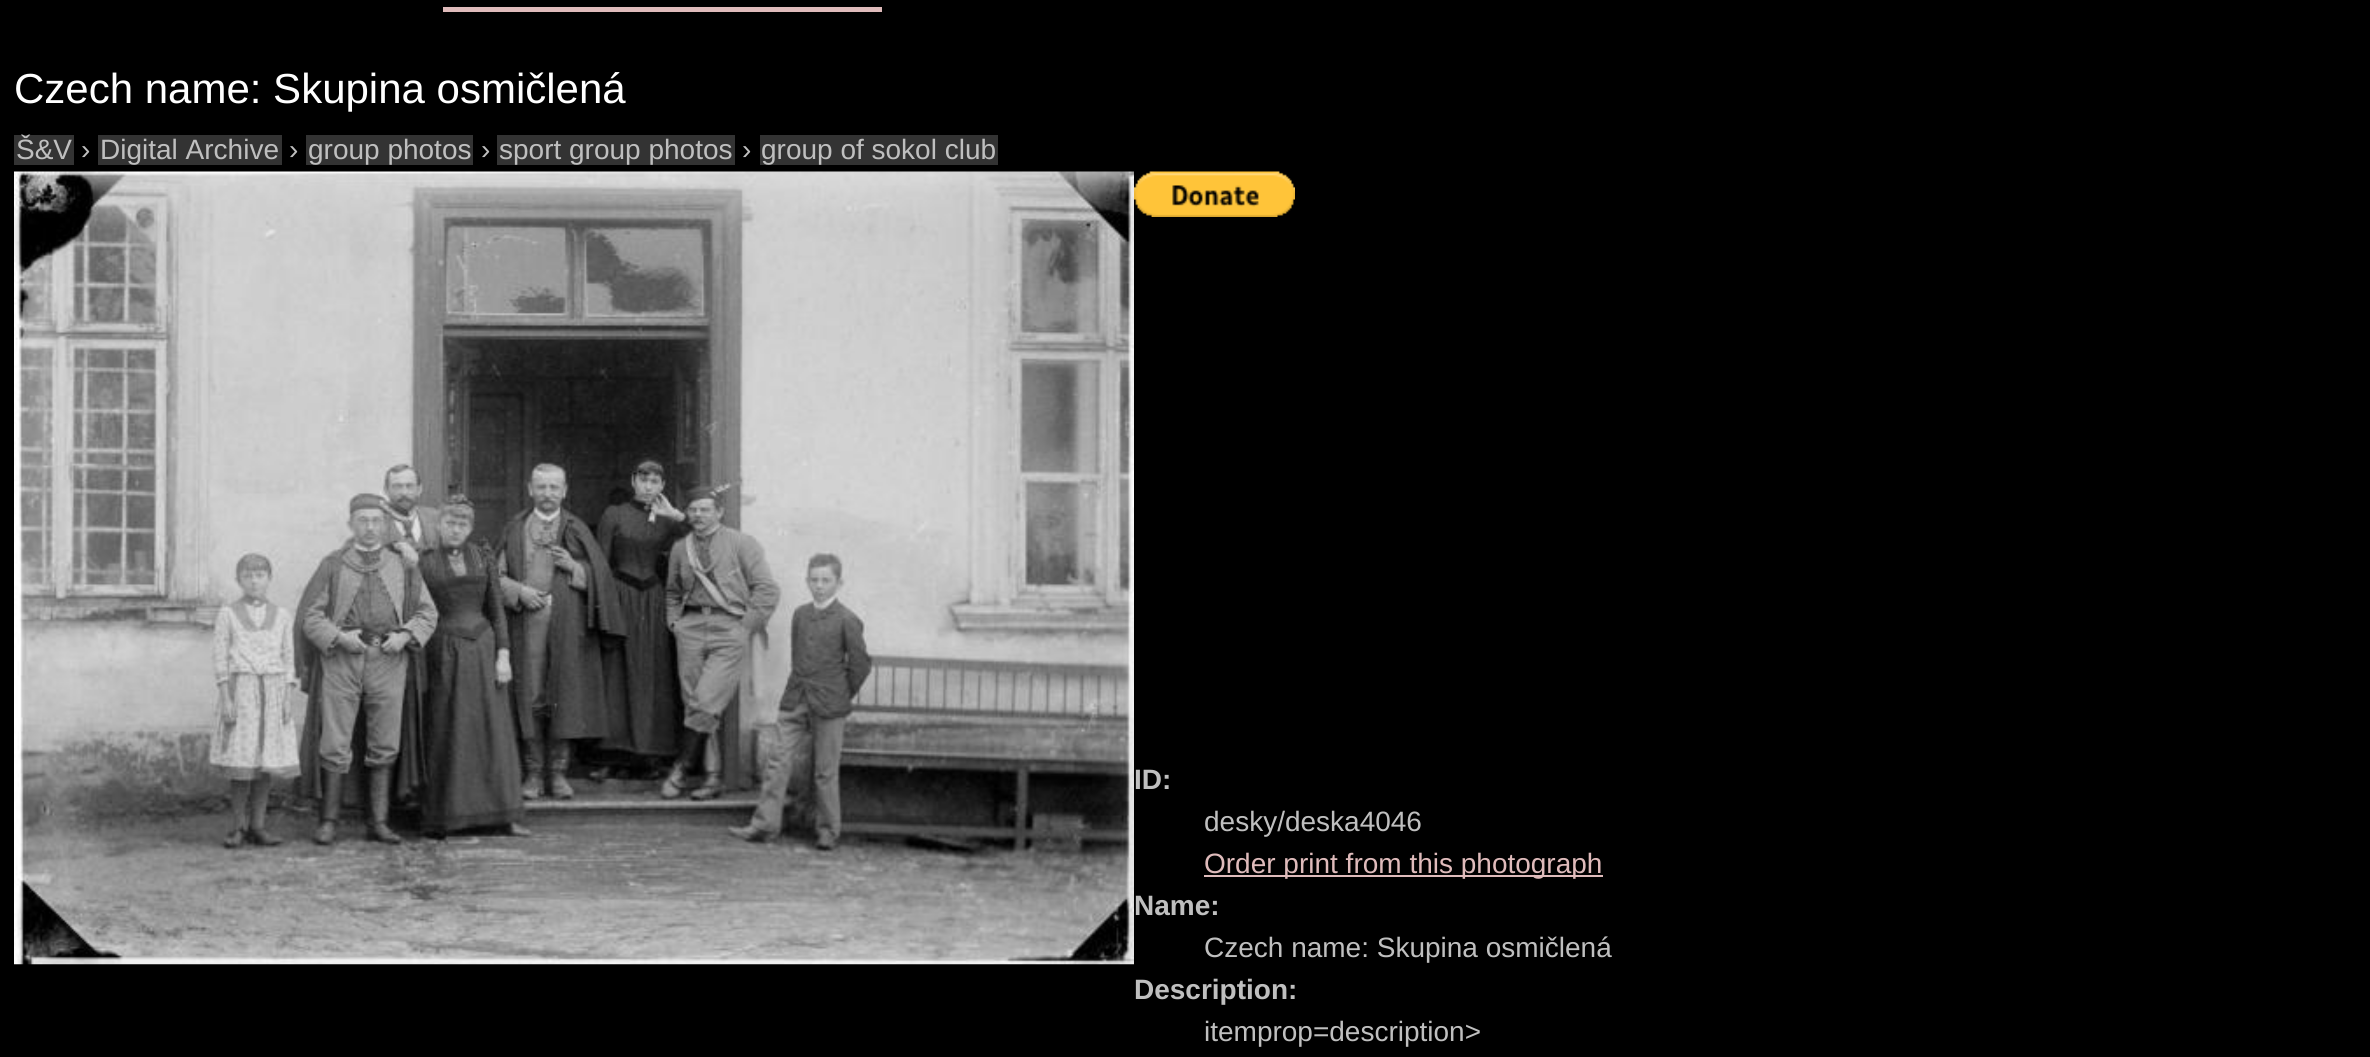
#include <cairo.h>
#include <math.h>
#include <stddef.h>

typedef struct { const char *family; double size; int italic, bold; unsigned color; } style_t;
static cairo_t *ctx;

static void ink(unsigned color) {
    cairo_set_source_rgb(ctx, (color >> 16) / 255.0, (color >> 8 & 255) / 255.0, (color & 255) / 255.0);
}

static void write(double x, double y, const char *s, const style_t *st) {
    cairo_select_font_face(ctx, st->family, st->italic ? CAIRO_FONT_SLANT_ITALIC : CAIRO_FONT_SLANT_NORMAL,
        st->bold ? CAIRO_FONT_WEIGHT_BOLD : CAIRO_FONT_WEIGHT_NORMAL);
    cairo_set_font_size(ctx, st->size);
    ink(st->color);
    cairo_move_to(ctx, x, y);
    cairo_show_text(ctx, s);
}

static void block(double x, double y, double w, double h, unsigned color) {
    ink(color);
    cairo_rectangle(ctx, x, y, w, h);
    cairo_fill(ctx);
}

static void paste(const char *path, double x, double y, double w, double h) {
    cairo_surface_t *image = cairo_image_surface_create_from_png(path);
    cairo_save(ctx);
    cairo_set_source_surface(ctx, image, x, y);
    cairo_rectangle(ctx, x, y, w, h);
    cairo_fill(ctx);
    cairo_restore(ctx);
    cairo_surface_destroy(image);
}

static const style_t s1 = {"Liberation Sans", 42, 0, 0, 0xffffff};
static const style_t s2 = {"Liberation Sans", 28, 0, 0, 0xbfbfbf};
static const style_t s3 = {"Liberation Sans", 28, 0, 1, 0xbfbfbf};
static const style_t s4 = {"Liberation Sans", 28, 0, 0, 0xdfbbbb};

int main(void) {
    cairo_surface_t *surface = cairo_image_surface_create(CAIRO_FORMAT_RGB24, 2370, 1057);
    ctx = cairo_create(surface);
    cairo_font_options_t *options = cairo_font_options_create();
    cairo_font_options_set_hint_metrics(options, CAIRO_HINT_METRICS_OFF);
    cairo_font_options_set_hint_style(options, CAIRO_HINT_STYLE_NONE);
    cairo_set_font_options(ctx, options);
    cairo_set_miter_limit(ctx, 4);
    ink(0x000000);
    cairo_paint(ctx);
    block(443, 7, 439, 5, 0xdfbbbb);
    write(14, 103, "Czech name: Skupina osmičlená", &s1);
    block(14, 135, 60, 30, 0x333333);
    write(16, 159, "Š&V", &s2);
    write(81, 159, "›", &s2);
    block(98, 135, 184, 30, 0x333333);
    write(100, 159, "Digital Archive", &s2);
    write(289, 159, "›", &s2);
    block(306, 135, 167, 30, 0x333333);
    write(308, 159, "group photos", &s2);
    write(481, 159, "›", &s2);
    block(497, 135, 238, 30, 0x333333);
    write(499, 159, "sport group photos", &s2);
    write(742, 159, "›", &s2);
    block(760, 135, 238, 30, 0x333333);
    write(761, 159, "group of sokol club", &s2);
    paste("pic1.png", 14, 171, 1120, 794);
    paste("pic2.png", 1134, 171, 161, 46);
    write(1134, 789, "ID:", &s3);
    write(1204, 831, "desky/deska4046", &s2);
    block(1204, 875, 399, 2, 0xdfbbbb);
    write(1204, 873, "Order print from this photograph", &s4);
    write(1134, 915, "Name:", &s3);
    write(1204, 957, "Czech name: Skupina osmičlená", &s2);
    write(1134, 999, "Description:", &s3);
    write(1204, 1041, "itemprop=description>", &s2);
    cairo_surface_write_to_png(surface, "screenshot.png");
    cairo_font_options_destroy(options);
    cairo_destroy(ctx);
    cairo_surface_destroy(surface);
    return 0;
}
